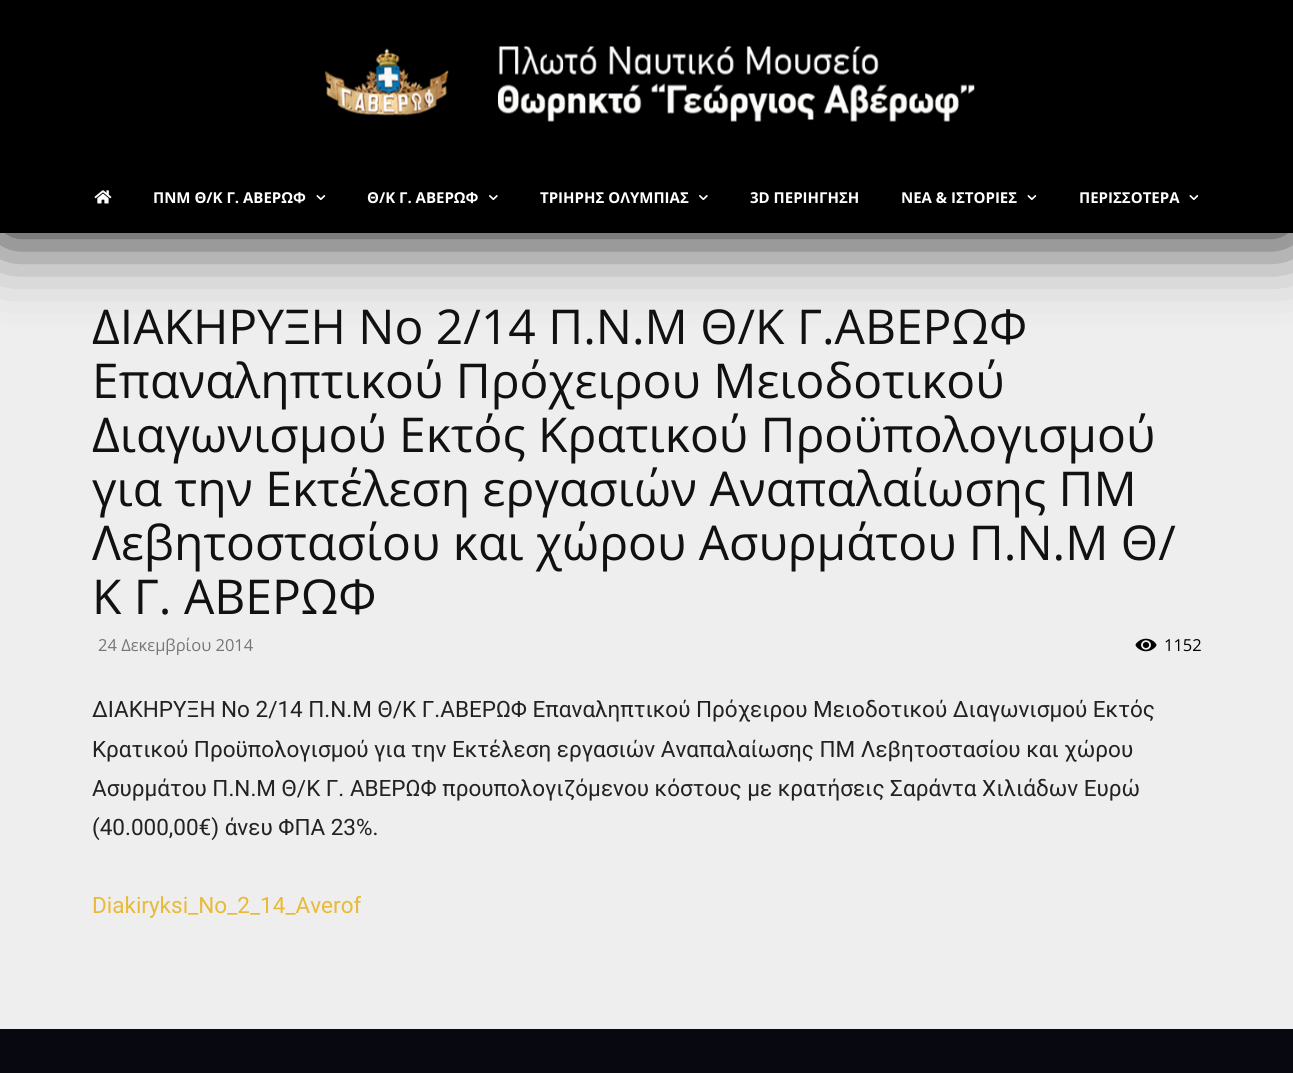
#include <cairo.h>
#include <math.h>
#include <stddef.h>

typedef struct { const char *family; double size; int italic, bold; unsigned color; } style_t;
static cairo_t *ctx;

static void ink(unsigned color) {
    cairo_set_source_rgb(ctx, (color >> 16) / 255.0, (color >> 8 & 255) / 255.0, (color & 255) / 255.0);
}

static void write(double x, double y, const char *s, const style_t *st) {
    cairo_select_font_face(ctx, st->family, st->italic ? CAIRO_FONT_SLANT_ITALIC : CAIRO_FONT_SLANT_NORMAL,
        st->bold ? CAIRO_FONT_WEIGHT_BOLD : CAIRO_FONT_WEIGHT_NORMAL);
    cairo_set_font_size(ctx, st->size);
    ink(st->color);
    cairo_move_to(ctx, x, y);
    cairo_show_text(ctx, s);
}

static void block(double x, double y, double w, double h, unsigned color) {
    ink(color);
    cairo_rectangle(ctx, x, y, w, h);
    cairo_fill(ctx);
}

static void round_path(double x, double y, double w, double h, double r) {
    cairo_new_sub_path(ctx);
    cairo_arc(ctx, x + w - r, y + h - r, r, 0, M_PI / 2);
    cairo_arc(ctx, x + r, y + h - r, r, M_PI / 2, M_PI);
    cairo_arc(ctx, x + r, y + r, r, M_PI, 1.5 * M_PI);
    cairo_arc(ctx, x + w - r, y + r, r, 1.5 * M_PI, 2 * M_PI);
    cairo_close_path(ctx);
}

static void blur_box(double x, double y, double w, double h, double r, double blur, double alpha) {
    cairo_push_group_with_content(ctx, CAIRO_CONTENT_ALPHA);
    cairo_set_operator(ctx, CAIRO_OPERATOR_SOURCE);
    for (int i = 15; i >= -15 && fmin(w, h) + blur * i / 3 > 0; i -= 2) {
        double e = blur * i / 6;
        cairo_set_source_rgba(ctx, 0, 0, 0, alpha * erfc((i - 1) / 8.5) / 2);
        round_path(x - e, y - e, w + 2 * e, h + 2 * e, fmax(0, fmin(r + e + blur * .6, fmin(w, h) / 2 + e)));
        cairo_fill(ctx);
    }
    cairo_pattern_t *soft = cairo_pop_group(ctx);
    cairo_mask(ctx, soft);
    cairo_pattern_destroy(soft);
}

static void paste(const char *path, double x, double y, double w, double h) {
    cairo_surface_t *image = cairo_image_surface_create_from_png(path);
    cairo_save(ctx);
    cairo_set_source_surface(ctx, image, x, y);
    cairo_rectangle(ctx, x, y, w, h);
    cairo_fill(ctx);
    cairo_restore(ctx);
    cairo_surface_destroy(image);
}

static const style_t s1 = {"Open Sans", 15, 0, 1, 0xffffff};
static const style_t s2 = {"Open Sans", 48, 0, 0, 0x111111};
static const style_t s3 = {"Open Sans", 16.5, 0, 0, 0x767676};
static const style_t s4 = {"Open Sans", 16.5, 0, 0, 0x000000};
static const style_t s5 = {"Roboto", 22.5, 0, 0, 0x222222};
static const style_t s6 = {"Roboto", 22.5, 0, 0, 0xe8ba38};

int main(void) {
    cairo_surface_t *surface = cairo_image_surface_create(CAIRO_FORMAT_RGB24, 1293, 1073);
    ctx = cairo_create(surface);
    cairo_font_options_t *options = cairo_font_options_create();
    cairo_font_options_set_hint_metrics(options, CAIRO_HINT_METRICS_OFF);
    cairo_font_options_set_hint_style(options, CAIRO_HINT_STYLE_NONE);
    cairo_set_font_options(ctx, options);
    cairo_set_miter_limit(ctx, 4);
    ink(0xeeeeee);
    cairo_paint(ctx);
    ink(0x0a0a0a);
    blur_box(0, 0, 1293, 233, 0, 37.5, 1);
    block(0, 0, 1293, 233, 0x000000);
    paste("pic1.png", 325, 46, 650, 76);
    paste("pic2.png", 94, 190, 18, 14);
    write(153, 203, "ΠΝΜ Θ/Κ Γ. ΑΒΕΡΩΦ", &s1);
    paste("pic3.png", 316, 195, 10, 6);
    write(367, 203, "Θ/Κ Γ. ΑΒΕΡΩΦ", &s1);
    paste("pic4.png", 489, 195, 9, 6);
    write(540, 203, "ΤΡΙΗΡΗΣ ΟΛΥΜΠΙΑΣ", &s1);
    paste("pic4.png", 699, 195, 9, 6);
    write(750, 203, "3D ΠΕΡΙΗΓΗΣΗ", &s1);
    write(901, 203, "ΝΕΑ & ΙΣΤΟΡΙΕΣ", &s1);
    paste("pic3.png", 1027, 195, 10, 6);
    write(1079, 203, "ΠΕΡΙΣΣΟΤΕΡΑ", &s1);
    paste("pic3.png", 1189, 195, 10, 6);
    write(92, 344, "ΔΙΑΚΗΡΥΞΗ Νο 2/14 Π.Ν.Μ Θ/Κ Γ.ΑΒΕΡΩΦ", &s2);
    write(92, 398, "Επαναληπτικού Πρόχειρου Μειοδοτικού", &s2);
    write(92, 452, "Διαγωνισμού Εκτός Κρατικού Προϋπολογισμού", &s2);
    write(92, 506, "για την Εκτέλεση εργασιών Αναπαλαίωσης ΠΜ", &s2);
    write(92, 560, "Λεβητοστασίου και χώρου Ασυρμάτου Π.Ν.Μ Θ/", &s2);
    write(92, 614, "Κ Γ. ΑΒΕΡΩΦ", &s2);
    write(98, 651, "24 Δεκεμβρίου 2014", &s3);
    paste("pic5.png", 1135, 638, 22, 14);
    write(1164, 651, "1152", &s4);
    write(92, 717, "ΔΙΑΚΗΡΥΞΗ Νο 2/14 Π.Ν.Μ Θ/Κ Γ.ΑΒΕΡΩΦ Επαναληπτικού Πρόχειρου Μειοδοτικού Διαγωνισμού Εκτός", &s5);
    write(92, 757, "Κρατικού Προϋπολογισμού για την Εκτέλεση εργασιών Αναπαλαίωσης ΠΜ Λεβητοστασίου και χώρου", &s5);
    write(92, 796, "Ασυρμάτου Π.Ν.Μ Θ/Κ Γ. ΑΒΕΡΩΦ προυπολογιζόμενου κόστους με κρατήσεις Σαράντα Χιλιάδων Ευρώ", &s5);
    write(92, 835, "(40.000,00€) άνευ ΦΠΑ 23%.", &s5);
    write(92, 913, "Diakiryksi_No_2_14_Averof", &s6);
    block(0, 1029, 1293, 44, 0x080810);
    cairo_surface_write_to_png(surface, "screenshot.png");
    cairo_font_options_destroy(options);
    cairo_destroy(ctx);
    cairo_surface_destroy(surface);
    return 0;
}
